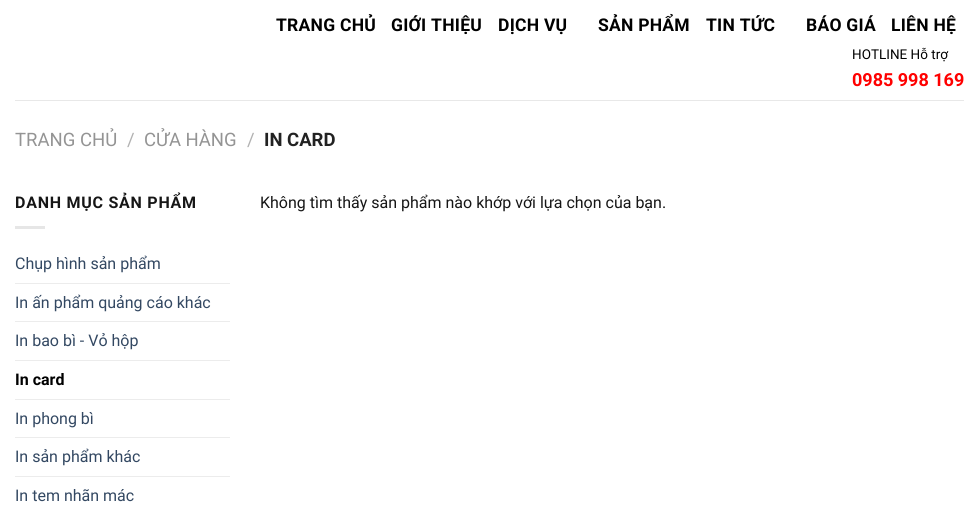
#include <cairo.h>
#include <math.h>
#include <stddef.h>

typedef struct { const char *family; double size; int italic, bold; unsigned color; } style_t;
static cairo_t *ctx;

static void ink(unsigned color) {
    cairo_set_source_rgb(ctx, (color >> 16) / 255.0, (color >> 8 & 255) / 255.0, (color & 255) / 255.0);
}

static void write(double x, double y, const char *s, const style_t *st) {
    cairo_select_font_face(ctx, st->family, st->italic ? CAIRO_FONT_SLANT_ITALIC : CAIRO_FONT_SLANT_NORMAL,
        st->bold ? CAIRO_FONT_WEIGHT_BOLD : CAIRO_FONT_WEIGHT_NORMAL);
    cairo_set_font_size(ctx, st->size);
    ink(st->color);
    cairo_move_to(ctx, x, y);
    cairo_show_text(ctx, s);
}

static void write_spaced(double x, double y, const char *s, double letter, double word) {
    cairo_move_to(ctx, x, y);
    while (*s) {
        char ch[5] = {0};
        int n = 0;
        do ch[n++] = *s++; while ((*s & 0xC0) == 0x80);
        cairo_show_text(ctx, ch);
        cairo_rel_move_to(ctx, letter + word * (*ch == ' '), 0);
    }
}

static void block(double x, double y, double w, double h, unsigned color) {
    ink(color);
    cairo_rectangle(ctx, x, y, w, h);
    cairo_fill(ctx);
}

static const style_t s1 = {"Roboto", 13.5, 0, 0, 0x000000};
static const style_t s2 = {"Roboto", 18, 0, 1, 0xff0000};
static const style_t s3 = {"Roboto", 18.5, 0, 0, 0x949494};
static const style_t s4 = {"Roboto", 18.5, 0, 0, 0xb2b2b2};
static const style_t s5 = {"Roboto", 18.5, 0, 1, 0x222222};
static const style_t s6 = {"Roboto", 16, 0, 0, 0x334862};
static const style_t s7 = {"Roboto", 16, 0, 1, 0x000000};
static const style_t s8 = {"Roboto", 16, 0, 0, 0x161616};

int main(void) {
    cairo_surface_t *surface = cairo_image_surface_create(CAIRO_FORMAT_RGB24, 979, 510);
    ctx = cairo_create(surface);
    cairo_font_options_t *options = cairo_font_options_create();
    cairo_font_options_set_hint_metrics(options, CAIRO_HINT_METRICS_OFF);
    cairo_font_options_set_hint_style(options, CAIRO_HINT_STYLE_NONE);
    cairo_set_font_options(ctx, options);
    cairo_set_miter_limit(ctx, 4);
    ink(0xffffff);
    cairo_paint(ctx);
    cairo_select_font_face(ctx, "Roboto", CAIRO_FONT_SLANT_NORMAL, CAIRO_FONT_WEIGHT_BOLD);
    cairo_set_font_size(ctx, 17.5);
    ink(0x000000);
    write_spaced(276, 31, "TRANG CHỦ", 0.25, 0);
    write_spaced(391, 31, "GIỚI THIỆU", 0.25, 0);
    write_spaced(498, 31, "DỊCH VỤ", 0.25, 0);
    write_spaced(598, 31, "SẢN PHẨM", 0.25, 0);
    write_spaced(706, 31, "TIN TỨC", 0.25, 0);
    write_spaced(806, 31, "BÁO GIÁ", 0.25, 0);
    write_spaced(891, 31, "LIÊN HỆ", 0.25, 0);
    write(852, 59, "HOTLINE Hỗ trợ", &s1);
    write(852, 86, "0985 998 169", &s2);
    block(15, 100, 949, 1, 0xe8e8e8);
    write(15, 146, "TRANG CHỦ", &s3);
    write(127, 146, "/", &s4);
    write(144, 146, "CỬA HÀNG", &s3);
    write(247, 146, "/", &s4);
    write(264, 146, "IN CARD", &s5);
    cairo_set_font_size(ctx, 16);
    ink(0x161616);
    write_spaced(15, 208, "DANH MỤC SẢN PHẨM", 0.75, 0);
    block(15, 226, 30, 3, 0xe6e6e6);
    write(15, 269, "Chụp hình sản phẩm", &s6);
    block(15, 283, 215, 1, 0xececec);
    write(15, 308, "In ấn phẩm quảng cáo khác", &s6);
    block(15, 321, 215, 1, 0xececec);
    write(15, 346, "In bao bì - Vỏ hộp", &s6);
    block(15, 360, 215, 1, 0xececec);
    write(15, 385, "In card", &s7);
    block(15, 399, 215, 1, 0xececec);
    write(15, 424, "In phong bì", &s6);
    block(15, 437, 215, 1, 0xececec);
    write(15, 462, "In sản phẩm khác", &s6);
    block(15, 476, 215, 1, 0xececec);
    write(15, 501, "In tem nhãn mác", &s6);
    write(260, 208, "Không tìm thấy sản phẩm nào khớp với lựa chọn của bạn.", &s8);
    cairo_surface_write_to_png(surface, "screenshot.png");
    cairo_font_options_destroy(options);
    cairo_destroy(ctx);
    cairo_surface_destroy(surface);
    return 0;
}
